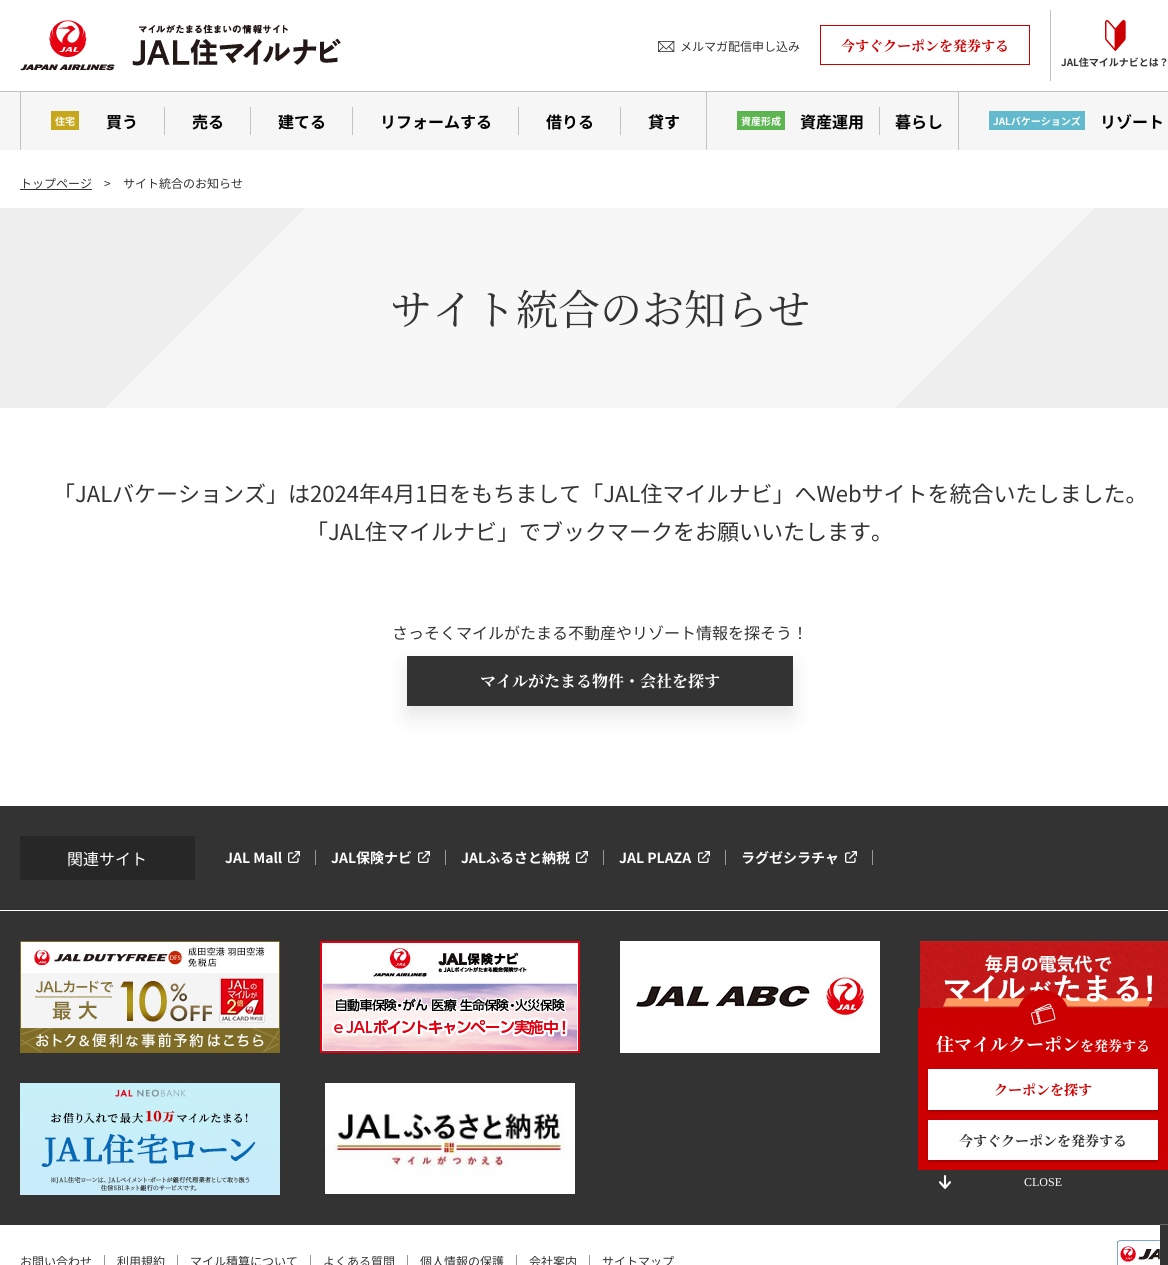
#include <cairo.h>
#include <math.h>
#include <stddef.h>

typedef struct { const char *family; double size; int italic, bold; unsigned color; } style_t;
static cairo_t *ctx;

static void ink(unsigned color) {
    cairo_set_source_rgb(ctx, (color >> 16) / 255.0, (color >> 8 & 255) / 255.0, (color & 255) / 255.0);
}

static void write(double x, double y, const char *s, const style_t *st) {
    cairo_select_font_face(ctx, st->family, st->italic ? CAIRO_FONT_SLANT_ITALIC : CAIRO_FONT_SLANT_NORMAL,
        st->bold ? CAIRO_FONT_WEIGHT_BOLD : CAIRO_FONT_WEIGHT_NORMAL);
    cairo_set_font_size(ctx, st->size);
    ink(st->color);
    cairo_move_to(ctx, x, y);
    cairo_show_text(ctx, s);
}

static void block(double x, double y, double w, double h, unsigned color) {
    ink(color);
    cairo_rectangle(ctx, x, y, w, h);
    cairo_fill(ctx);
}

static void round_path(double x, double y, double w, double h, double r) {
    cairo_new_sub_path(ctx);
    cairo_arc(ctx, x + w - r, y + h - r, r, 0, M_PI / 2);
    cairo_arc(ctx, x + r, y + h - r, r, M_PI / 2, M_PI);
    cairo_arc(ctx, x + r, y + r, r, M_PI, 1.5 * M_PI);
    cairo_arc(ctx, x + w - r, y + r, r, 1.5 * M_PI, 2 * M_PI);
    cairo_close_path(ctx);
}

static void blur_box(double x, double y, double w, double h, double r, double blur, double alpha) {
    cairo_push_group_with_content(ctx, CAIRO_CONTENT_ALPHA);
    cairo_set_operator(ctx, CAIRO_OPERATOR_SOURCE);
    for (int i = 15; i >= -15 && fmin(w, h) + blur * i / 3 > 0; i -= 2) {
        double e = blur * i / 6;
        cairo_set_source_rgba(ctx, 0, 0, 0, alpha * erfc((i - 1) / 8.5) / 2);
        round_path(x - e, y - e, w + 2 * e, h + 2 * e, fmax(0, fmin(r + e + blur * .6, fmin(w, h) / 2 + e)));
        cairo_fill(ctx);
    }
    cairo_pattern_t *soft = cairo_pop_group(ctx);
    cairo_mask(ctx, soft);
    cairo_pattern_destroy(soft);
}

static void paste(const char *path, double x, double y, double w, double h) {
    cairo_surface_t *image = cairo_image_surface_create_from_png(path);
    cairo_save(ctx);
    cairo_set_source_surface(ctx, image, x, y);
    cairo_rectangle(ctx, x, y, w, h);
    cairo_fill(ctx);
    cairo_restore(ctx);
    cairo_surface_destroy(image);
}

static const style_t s1 = {"Noto Sans JP", 12, 0, 0, 0x333333};
static const style_t s2 = {"Noto Serif JP", 14, 0, 1, 0xcc0000};
static const style_t s3 = {"Noto Sans JP", 10, 0, 1, 0x333333};
static const style_t s4 = {"Noto Sans JP", 10, 0, 1, 0xffffff};
static const style_t s5 = {"Noto Sans JP", 16, 0, 1, 0x000000};
static const style_t s6 = {"Noto Serif JP", 42, 0, 0, 0x333333};
static const style_t s7 = {"Noto Sans JP", 22, 0, 0, 0x333333};
static const style_t s8 = {"Noto Sans JP", 16, 0, 0, 0x333333};
static const style_t s9 = {"Noto Serif JP", 16, 0, 1, 0xffffff};
static const style_t s10 = {"Noto Sans JP", 16, 0, 0, 0xffffff};
static const style_t s11 = {"Noto Sans JP", 14, 0, 1, 0xffffff};
static const style_t s12 = {"Noto Serif JP", 18, 0, 1, 0xffffff};
static const style_t s13 = {"Noto Serif JP", 14, 0, 1, 0xffffff};
static const style_t s14 = {"Noto Serif JP", 14, 0, 1, 0x333333};
static const style_t s15 = {"Liberation Serif", 12, 0, 0, 0xffffff};

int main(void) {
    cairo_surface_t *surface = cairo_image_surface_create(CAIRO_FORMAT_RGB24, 1168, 1265);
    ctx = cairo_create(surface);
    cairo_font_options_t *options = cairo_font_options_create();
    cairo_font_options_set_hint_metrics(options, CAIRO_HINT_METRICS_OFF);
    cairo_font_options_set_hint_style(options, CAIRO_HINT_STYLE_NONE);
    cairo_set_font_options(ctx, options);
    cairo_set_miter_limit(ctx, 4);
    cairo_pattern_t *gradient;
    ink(0xffffff);
    cairo_paint(ctx);
    block(0, 91, 1168, 1, 0xc3c3c3);
    paste("pic1.png", 20, 20, 321, 51);
    paste("pic2.png", 658, 41, 17, 11);
    write(680, 51, "メルマガ配信申し込み", &s1);
    cairo_rectangle(ctx, 820.5, 25.5, 209, 39);
    ink(0xcc0000);
    cairo_set_line_width(ctx, 1);
    cairo_stroke(ctx);
    write(841, 51, "今すぐクーポンを発券する", &s2);
    block(1050, 10, 1, 71, 0xc3c3c3);
    paste("pic3.png", 1105, 20, 21, 31);
    write(1061, 66, "JAL住マイルナビとは？", &s3);
    block(0, 92, 1168, 58, 0xf6f6f6);
    block(20, 92, 1, 58, 0xc3c3c3);
    block(51, 111, 28, 19, 0xc7a81c);
    write(55, 125, "住宅", &s4);
    block(164, 107, 1, 28, 0xc3c3c3);
    write(106, 128, "買う", &s5);
    block(250, 107, 1, 28, 0xc3c3c3);
    write(192, 128, "売る", &s5);
    block(352, 107, 1, 28, 0xc3c3c3);
    write(278, 128, "建てる", &s5);
    block(518, 107, 1, 28, 0xc3c3c3);
    write(380, 128, "リフォームする", &s5);
    block(620, 107, 1, 28, 0xc3c3c3);
    write(546, 128, "借りる", &s5);
    write(648, 128, "貸す", &s5);
    block(706, 92, 1, 58, 0xc3c3c3);
    block(737, 111, 48, 19, 0x5cb551);
    write(741, 125, "資産形成", &s4);
    block(879, 107, 1, 28, 0xc3c3c3);
    write(800, 128, "資産運用", &s5);
    write(895, 128, "暮らし", &s5);
    block(958, 92, 1, 58, 0xc3c3c3);
    block(989, 111, 96, 19, 0x63bacc);
    write(993, 125, "JALバケーションズ", &s4);
    write(1100, 128, "リゾート", &s5);
    write(20, 188, "トップページ", &s1);
    block(20, 189, 72, 1, 0x333333);
    write(104, 188, ">", &s1);
    write(123, 188, "サイト統合のお知らせ", &s1);
    block(0, 208, 20, 200, 0xeeeeee);
    gradient = cairo_pattern_create_linear(940, 648, 260, -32);
    cairo_pattern_add_color_stop_rgba(gradient, 0.21, 0.933, 0.933, 0.933, 1);
    cairo_pattern_add_color_stop_rgba(gradient, 0.21, 0.969, 0.969, 0.969, 1);
    cairo_set_source(ctx, gradient);
    cairo_pattern_destroy(gradient);
    cairo_rectangle(ctx, 106, 208, 1062, 200);
    cairo_fill(ctx);
    gradient = cairo_pattern_create_linear(260, -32, 940, 648);
    cairo_pattern_add_color_stop_rgba(gradient, 0.21, 0.933, 0.933, 0.933, 1);
    cairo_pattern_add_color_stop_rgba(gradient, 0.21, 0.933, 0.933, 0.933, 0);
    cairo_set_source(ctx, gradient);
    cairo_pattern_destroy(gradient);
    cairo_rectangle(ctx, 20, 208, 285, 200);
    cairo_fill(ctx);
    write(390, 325, "サイト統合のお知らせ", &s6);
    write(53, 502, "「JALバケーションズ」は2024年4月1日をもちまして「JAL住マイルナビ」へWebサイトを統合いたしました。", &s7);
    write(306, 540, "「JAL住マイルナビ」でブックマークをお願いいたします。", &s7);
    ink(0x000000);
    blur_box(407, 666, 386, 50, 0, 10, 0.1);
    write(392, 639, "さっそくマイルがたまる不動産やリゾート情報を探そう！", &s8);
    block(407, 656, 386, 50, 0x333333);
    write(480, 687, "マイルがたまる物件・会社を探す", &s9);
    block(0, 806, 1168, 104, 0x333333);
    block(20, 836, 175, 44, 0x272727);
    write(67, 865, "関連サイト", &s10);
    block(315, 850, 1, 15, 0x999999);
    write(225, 863, "JAL Mall", &s11);
    paste("pic4.png", 288, 851, 12, 12);
    block(445, 850, 1, 15, 0x999999);
    write(331, 863, "JAL保険ナビ", &s11);
    paste("pic4.png", 418, 851, 12, 12);
    block(603, 850, 1, 15, 0x999999);
    write(461, 863, "JALふるさと納税", &s11);
    paste("pic4.png", 576, 851, 12, 12);
    block(725, 850, 1, 15, 0x999999);
    write(619, 863, "JAL PLAZA", &s11);
    paste("pic4.png", 698, 851, 12, 12);
    block(872, 850, 1, 15, 0x999999);
    write(741, 863, "ラグゼシラチャ", &s11);
    paste("pic4.png", 845, 851, 12, 12);
    block(0, 911, 1168, 314, 0x333333);
    paste("pic5.png", 20, 941, 260, 112);
    paste("pic6.png", 320, 941, 260, 112);
    paste("pic7.png", 620, 941, 260, 112);
    paste("pic8.png", 920, 941, 248, 67);
    paste("pic9.png", 20, 1083, 260, 112);
    paste("pic10.png", 325, 1083, 250, 111);
    block(918, 1008, 250, 162, 0xcc0000);
    cairo_arc(ctx, 1043, 1016, 26, 0, 2 * M_PI);
    cairo_fill(ctx);
    paste("pic11.png", 1031, 1003, 25, 22);
    write(936, 1051, "住マイルクーポン", &s12);
    write(1080, 1051, "を発券する", &s13);
    ink(0x000000);
    blur_box(928, 1071, 230, 41, 0, 1, 0.2);
    block(928, 1069, 230, 41, 0xffffff);
    write(994, 1095, "クーポンを探す", &s2);
    ink(0x000000);
    blur_box(928, 1122, 230, 40, 0, 1, 0.2);
    block(928, 1120, 230, 40, 0xffffff);
    write(959, 1146, "今すぐクーポンを発券する", &s14);
    paste("pic12.png", 939, 1175, 12, 14);
    write(1024, 1186, "CLOSE", &s15);
    write(20, 1266, "お問い合わせ", &s1);
    block(104, 1255, 1, 10, 0x999999);
    write(117, 1266, "利用規約", &s1);
    block(177, 1255, 1, 10, 0x999999);
    write(190, 1266, "マイル積算について", &s1);
    block(310, 1255, 1, 10, 0x999999);
    write(323, 1266, "よくある質問", &s1);
    block(407, 1255, 1, 10, 0x999999);
    write(420, 1266, "個人情報の保護", &s1);
    block(516, 1255, 1, 10, 0x999999);
    write(529, 1266, "会社案内", &s1);
    block(589, 1255, 1, 10, 0x999999);
    write(602, 1266, "サイトマップ", &s1);
    paste("pic13.png", 1117, 1240, 43, 25);
    ink(0xffffff);
    blur_box(1160, 1225, 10, 40, 0, 0.5, 1);
    block(1160, 1225, 8, 40, 0x333333);
    cairo_surface_write_to_png(surface, "screenshot.png");
    cairo_font_options_destroy(options);
    cairo_destroy(ctx);
    cairo_surface_destroy(surface);
    return 0;
}
